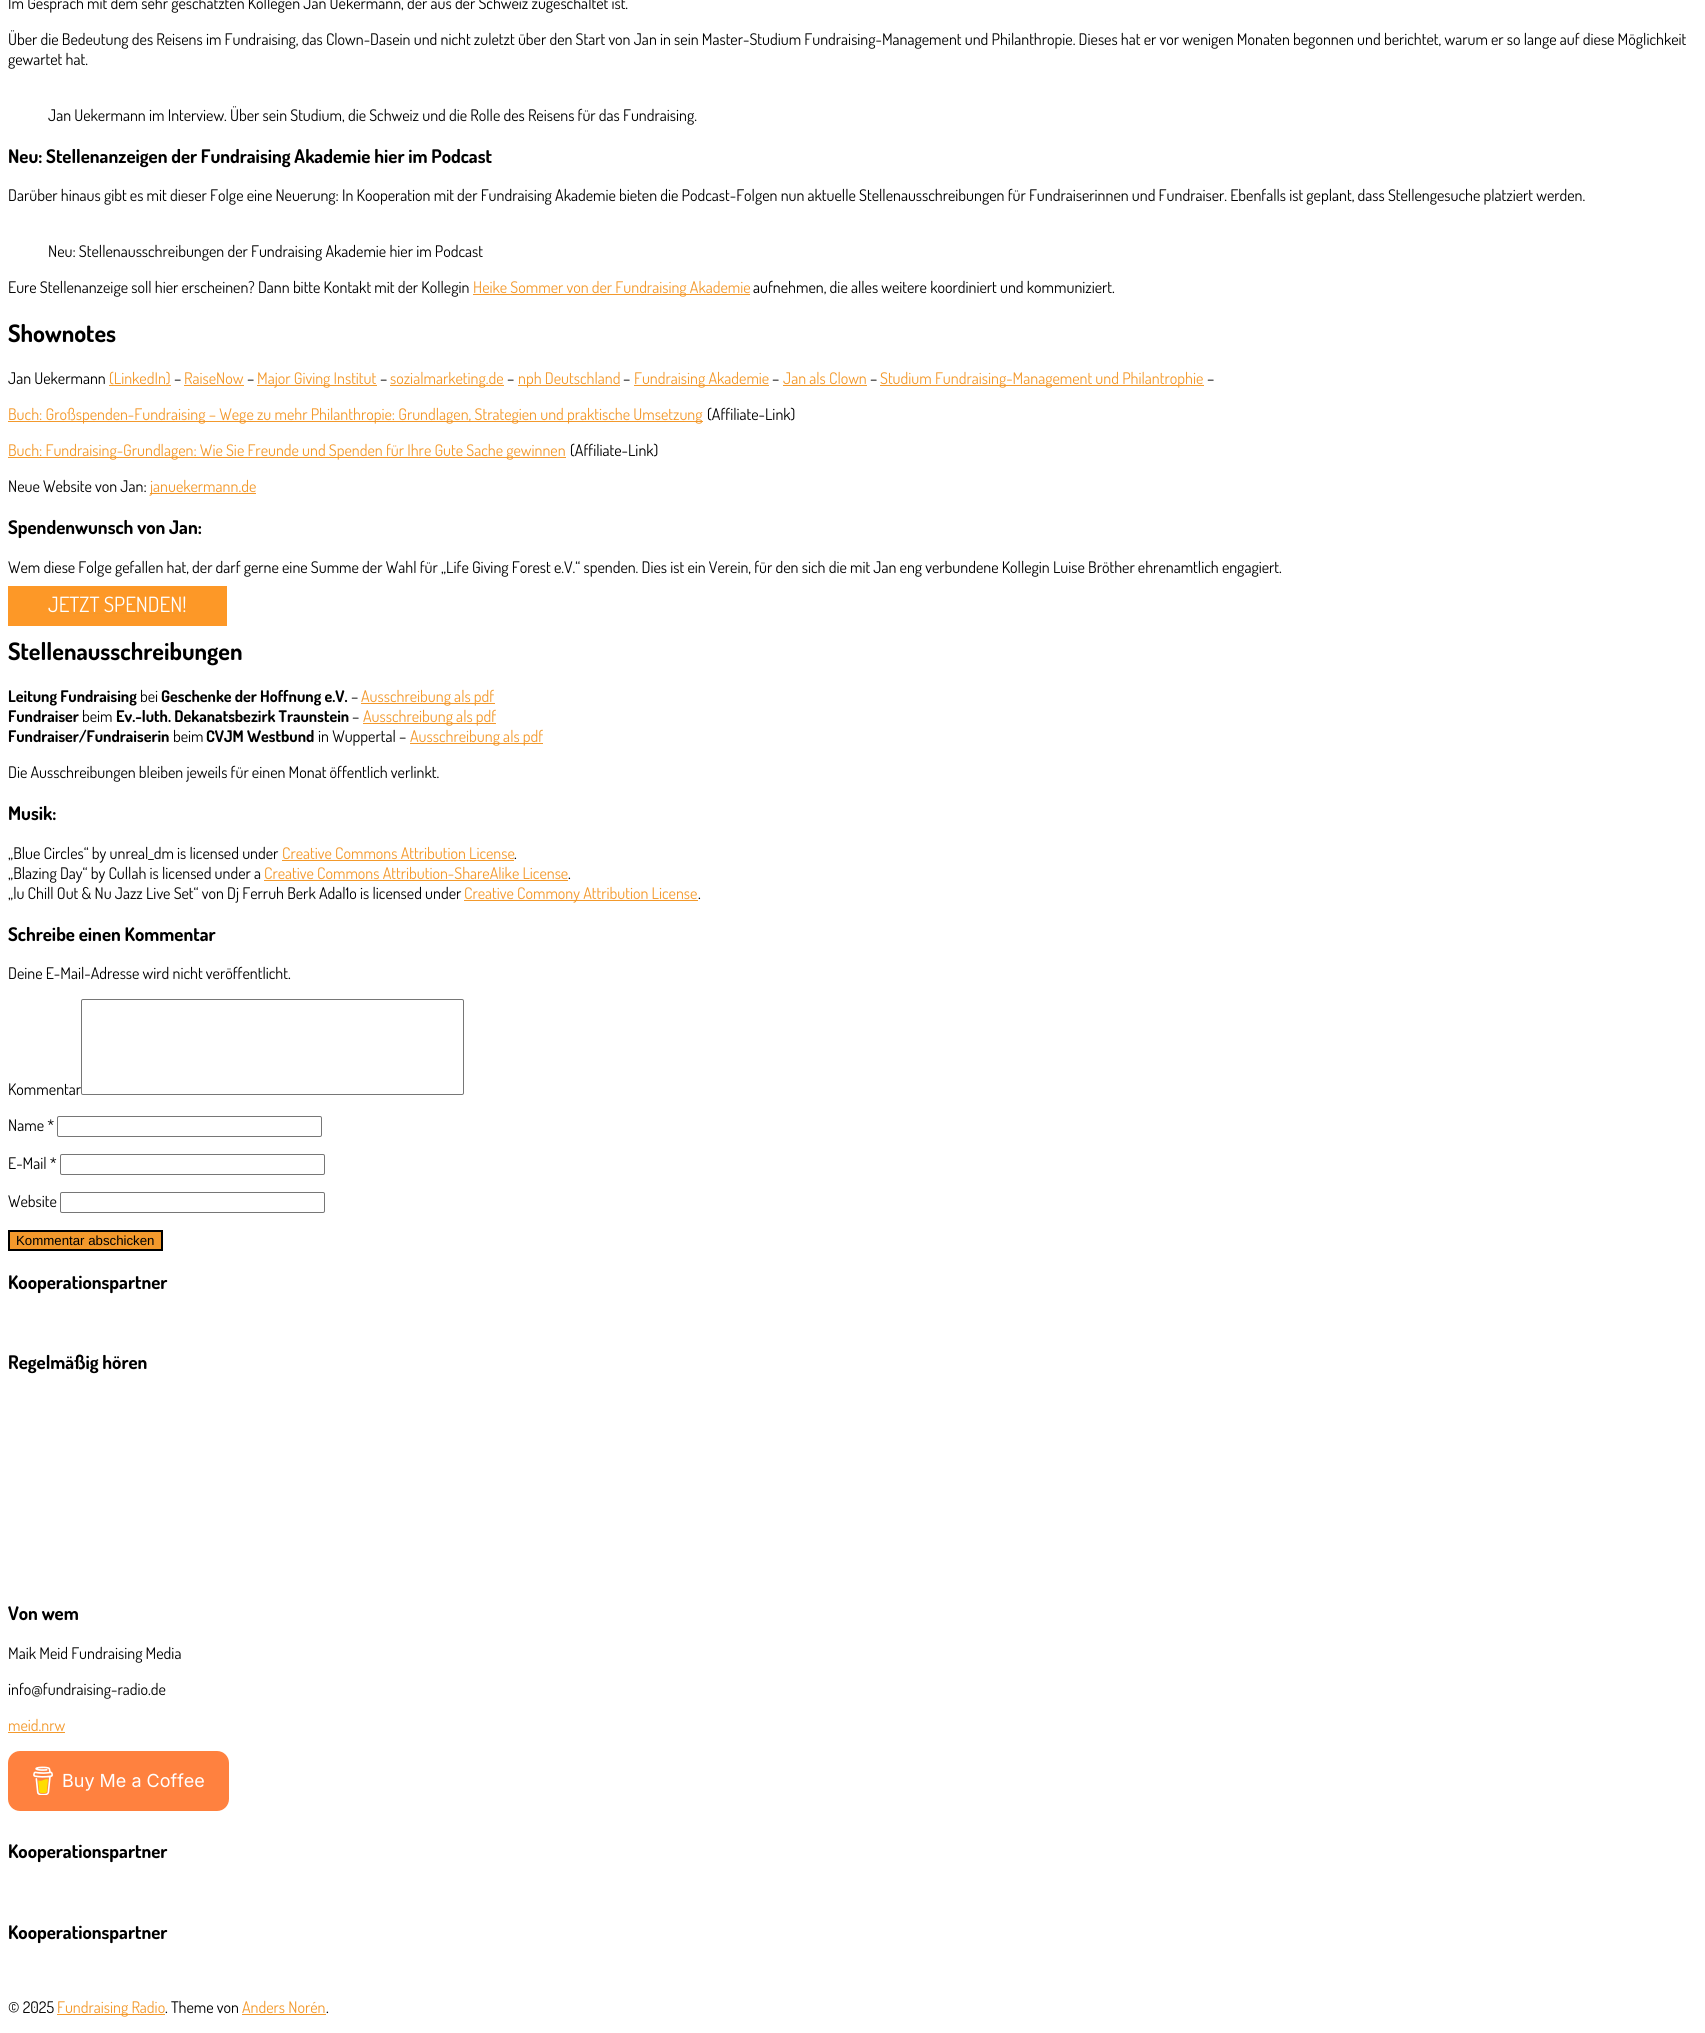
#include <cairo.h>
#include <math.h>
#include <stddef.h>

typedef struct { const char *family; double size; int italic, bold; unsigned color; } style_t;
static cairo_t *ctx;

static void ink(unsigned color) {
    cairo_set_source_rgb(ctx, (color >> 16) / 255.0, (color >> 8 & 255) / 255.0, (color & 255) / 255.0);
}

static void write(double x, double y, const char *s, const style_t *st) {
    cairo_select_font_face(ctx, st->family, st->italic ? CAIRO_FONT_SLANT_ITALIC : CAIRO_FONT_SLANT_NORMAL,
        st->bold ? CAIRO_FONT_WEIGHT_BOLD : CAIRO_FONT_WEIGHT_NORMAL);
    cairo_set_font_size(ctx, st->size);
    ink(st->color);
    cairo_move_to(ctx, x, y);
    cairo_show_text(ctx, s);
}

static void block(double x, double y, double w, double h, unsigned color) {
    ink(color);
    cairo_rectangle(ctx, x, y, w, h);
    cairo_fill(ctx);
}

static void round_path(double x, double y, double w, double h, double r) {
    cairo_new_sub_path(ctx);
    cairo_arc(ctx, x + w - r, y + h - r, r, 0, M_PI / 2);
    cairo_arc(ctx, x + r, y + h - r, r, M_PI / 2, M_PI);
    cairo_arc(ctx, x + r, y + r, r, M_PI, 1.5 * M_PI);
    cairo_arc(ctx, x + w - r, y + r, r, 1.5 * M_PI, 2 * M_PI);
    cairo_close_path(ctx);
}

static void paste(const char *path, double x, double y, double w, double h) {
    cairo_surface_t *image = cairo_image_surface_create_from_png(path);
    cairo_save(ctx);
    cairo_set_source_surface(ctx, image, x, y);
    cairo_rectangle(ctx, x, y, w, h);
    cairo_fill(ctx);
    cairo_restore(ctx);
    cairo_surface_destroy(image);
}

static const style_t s1 = {"Dosis", 16, 0, 0, 0x000000};
static const style_t s2 = {"Dosis", 18.75, 0, 1, 0x000000};
static const style_t s3 = {"Dosis", 16, 0, 0, 0xf3992c};
static const style_t s4 = {"Dosis", 24, 0, 1, 0x000000};
static const style_t s5 = {"Dosis", 21, 0, 0, 0xffffff};
static const style_t s6 = {"Dosis", 16, 0, 1, 0x000000};
static const style_t s7 = {"Liberation Sans", 13.25, 0, 0, 0x000000};
static const style_t s8 = {"Inter", 18, 0, 0, 0xffffff};

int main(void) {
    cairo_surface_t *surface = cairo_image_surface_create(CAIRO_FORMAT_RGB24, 1705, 2033);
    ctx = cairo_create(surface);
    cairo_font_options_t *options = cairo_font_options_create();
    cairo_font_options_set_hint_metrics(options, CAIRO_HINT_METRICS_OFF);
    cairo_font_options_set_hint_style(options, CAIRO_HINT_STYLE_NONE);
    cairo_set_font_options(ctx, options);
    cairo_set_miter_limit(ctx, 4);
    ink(0xffffff);
    cairo_paint(ctx);
    write(8, 9, "Im Gespräch mit dem sehr geschätzten Kollegen Jan Uekermann, der aus der Schweiz zugeschaltet ist.", &s1);
    write(8, 45, "Über die Bedeutung des Reisens im Fundraising, das Clown-Dasein und nicht zuletzt über den Start von Jan in sein Master-Studium Fundraising-Management und Philanthropie. Dieses hat er vor wenigen Monaten begonnen und berichtet, warum er so lange auf diese Möglichkeit", &s1);
    write(8, 65, "gewartet hat.", &s1);
    write(48, 121, "Jan Uekermann im Interview. Über sein Studium, die Schweiz und die Rolle des Reisens für das Fundraising.", &s1);
    write(8, 163, "Neu: Stellenanzeigen der Fundraising Akademie hier im Podcast", &s2);
    write(8, 201, "Darüber hinaus gibt es mit dieser Folge eine Neuerung: In Kooperation mit der Fundraising Akademie bieten die Podcast-Folgen nun aktuelle Stellenausschreibungen für Fundraiserinnen und Fundraiser. Ebenfalls ist geplant, dass Stellengesuche platziert werden.", &s1);
    write(48, 257, "Neu: Stellenausschreibungen der Fundraising Akademie hier im Podcast", &s1);
    write(8, 293, "Eure Stellenanzeige soll hier erscheinen? Dann bitte Kontakt mit der Kollegin", &s1);
    block(473, 294, 277, 1, 0xf3992c);
    write(473, 293, "Heike Sommer von der Fundraising Akademie", &s3);
    write(753, 293, "aufnehmen, die alles weitere koordiniert und kommuniziert.", &s1);
    write(8, 342, "Shownotes", &s4);
    write(8, 384, "Jan Uekermann", &s1);
    write(109, 384, "(LinkedIn)", &s3);
    block(109, 385, 62, 1, 0xf3992c);
    write(174, 384, "–", &s1);
    write(184, 384, "RaiseNow", &s3);
    block(184, 385, 60, 1, 0xf3992c);
    write(247, 384, "–", &s1);
    block(257, 385, 120, 1, 0xf3992c);
    write(257, 384, "Major Giving Institut", &s3);
    write(380, 384, "–", &s1);
    block(390, 385, 114, 1, 0xf3992c);
    write(390, 384, "sozialmarketing.de", &s3);
    write(507, 384, "–", &s1);
    block(518, 385, 102, 1, 0xf3992c);
    write(518, 384, "nph Deutschland", &s3);
    write(623, 384, "–", &s1);
    block(634, 385, 135, 1, 0xf3992c);
    write(634, 384, "Fundraising Akademie", &s3);
    write(772, 384, "–", &s1);
    write(783, 384, "Jan als Clown", &s3);
    block(783, 385, 84, 1, 0xf3992c);
    write(870, 384, "–", &s1);
    block(880, 385, 324, 1, 0xf3992c);
    write(880, 384, "Studium Fundraising-Management und Philantrophie", &s3);
    write(1207, 384, "–", &s1);
    block(8, 421, 695, 1, 0xf3992c);
    write(8, 420, "Buch: Großspenden-Fundraising – Wege zu mehr Philanthropie: Grundlagen, Strategien und praktische Umsetzung", &s3);
    write(707, 420, "(Affiliate-Link)", &s1);
    block(8, 457, 558, 1, 0xf3992c);
    write(8, 456, "Buch: Fundraising-Grundlagen: Wie Sie Freunde und Spenden für Ihre Gute Sache gewinnen", &s3);
    write(570, 456, "(Affiliate-Link)", &s1);
    write(8, 492, "Neue Website von Jan:", &s1);
    block(150, 493, 106, 1, 0xf3992c);
    write(150, 492, "januekermann.de", &s3);
    write(8, 534, "Spendenwunsch von Jan:", &s2);
    write(8, 573, "Wem diese Folge gefallen hat, der darf gerne eine Summe der Wahl für „Life Giving Forest e.V.“ spenden. Dies ist ein Verein, für den sich die mit Jan eng verbundene Kollegin Luise Bröther ehrenamtlich engagiert.", &s1);
    block(8, 586, 219, 40, 0xfd9827);
    write(48, 612, "JETZT SPENDEN!", &s5);
    block(48, 613, 139, 1, 0xf3992c);
    write(8, 660, "Stellenausschreibungen", &s4);
    write(8, 702, "Leitung Fundraising", &s6);
    write(140, 702, "bei", &s1);
    write(161, 702, "Geschenke der Hoffnung e.V.", &s6);
    write(351, 702, "–", &s1);
    block(361, 703, 134, 1, 0xf3992c);
    write(361, 702, "Ausschreibung als pdf", &s3);
    write(8, 722, "Fundraiser", &s6);
    write(82, 722, "beim", &s1);
    write(116, 722, "Ev.-luth. Dekanatsbezirk Traunstein", &s6);
    write(352, 722, "–", &s1);
    block(363, 723, 133, 1, 0xf3992c);
    write(363, 722, "Ausschreibung als pdf", &s3);
    write(8, 742, "Fundraiser/Fundraiserin", &s6);
    write(173, 742, "beim", &s1);
    write(206, 742, "CVJM Westbund", &s6);
    write(318, 742, "in Wuppertal –", &s1);
    block(410, 743, 133, 1, 0xf3992c);
    write(410, 742, "Ausschreibung als pdf", &s3);
    write(8, 778, "Die Ausschreibungen bleiben jeweils für einen Monat öffentlich verlinkt.", &s1);
    write(8, 820, "Musik:", &s2);
    write(8, 859, "„Blue Circles“ by unreal_dm is licensed under", &s1);
    write(282, 859, "Creative Commons Attribution License", &s3);
    block(282, 860, 232, 1, 0xf3992c);
    write(514, 859, ".", &s1);
    write(8, 879, "„Blazing Day“ by Cullah is licensed under a", &s1);
    write(264, 879, "Creative Commons Attribution-ShareAlike License", &s3);
    block(264, 880, 304, 1, 0xf3992c);
    write(568, 879, ".", &s1);
    write(8, 899, "„lu Chill Out & Nu Jazz Live Set“ von Dj Ferruh Berk Adal1o is licensed under", &s1);
    block(464, 900, 234, 1, 0xf3992c);
    write(464, 899, "Creative Commony Attribution License", &s3);
    write(698, 899, ".", &s1);
    write(8, 941, "Schreibe einen Kommentar", &s2);
    write(8, 979, "Deine E-Mail-Adresse wird nicht veröffentlicht.", &s1);
    write(8, 1095, "Kommentar", &s1);
    round_path(81.5, 999.5, 382, 95, 1.5);
    ink(0x767676);
    cairo_set_line_width(ctx, 1);
    cairo_stroke(ctx);
    write(8, 1131, "Name *", &s1);
    round_path(57.5, 1116.5, 264, 20, 1.5);
    ink(0x767676);
    cairo_stroke(ctx);
    write(8, 1169, "E-Mail *", &s1);
    round_path(60.5, 1154.5, 264, 20, 1.5);
    ink(0x767676);
    cairo_stroke(ctx);
    write(8, 1207, "Website", &s1);
    round_path(60.5, 1192.5, 264, 20, 1.5);
    ink(0x767676);
    cairo_stroke(ctx);
    ink(0xf3992c);
    cairo_rectangle(ctx, 9, 1231, 153, 19);
    cairo_fill_preserve(ctx);
    ink(0x000000);
    cairo_set_line_width(ctx, 2);
    cairo_stroke(ctx);
    write(16, 1245, "Kommentar abschicken", &s7);
    write(8, 1289, "Kooperationspartner", &s2);
    write(8, 1369, "Regelmäßig hören", &s2);
    write(8, 1620, "Von wem", &s2);
    write(8, 1659, "Maik Meid Fundraising Media", &s1);
    write(8, 1695, "info@fundraising-radio.de", &s1);
    write(8, 1731, "meid.nrw", &s3);
    block(8, 1732, 57, 1, 0xf3992c);
    ink(0xff813f);
    round_path(8, 1751, 221, 60, 12);
    cairo_fill(ctx);
    paste("pic1.png", 33, 1766, 20, 29);
    write(62, 1787, "Buy Me a Coffee", &s8);
    write(8, 1858, "Kooperationspartner", &s2);
    write(8, 1939, "Kooperationspartner", &s2);
    write(8, 2013, "© 2025", &s1);
    block(57, 2014, 108, 1, 0xf3992c);
    write(57, 2013, "Fundraising Radio", &s3);
    write(165, 2013, ". Theme von", &s1);
    write(242, 2013, "Anders Norén", &s3);
    block(242, 2014, 84, 1, 0xf3992c);
    write(326, 2013, ".", &s1);
    cairo_surface_write_to_png(surface, "screenshot.png");
    cairo_font_options_destroy(options);
    cairo_destroy(ctx);
    cairo_surface_destroy(surface);
    return 0;
}
